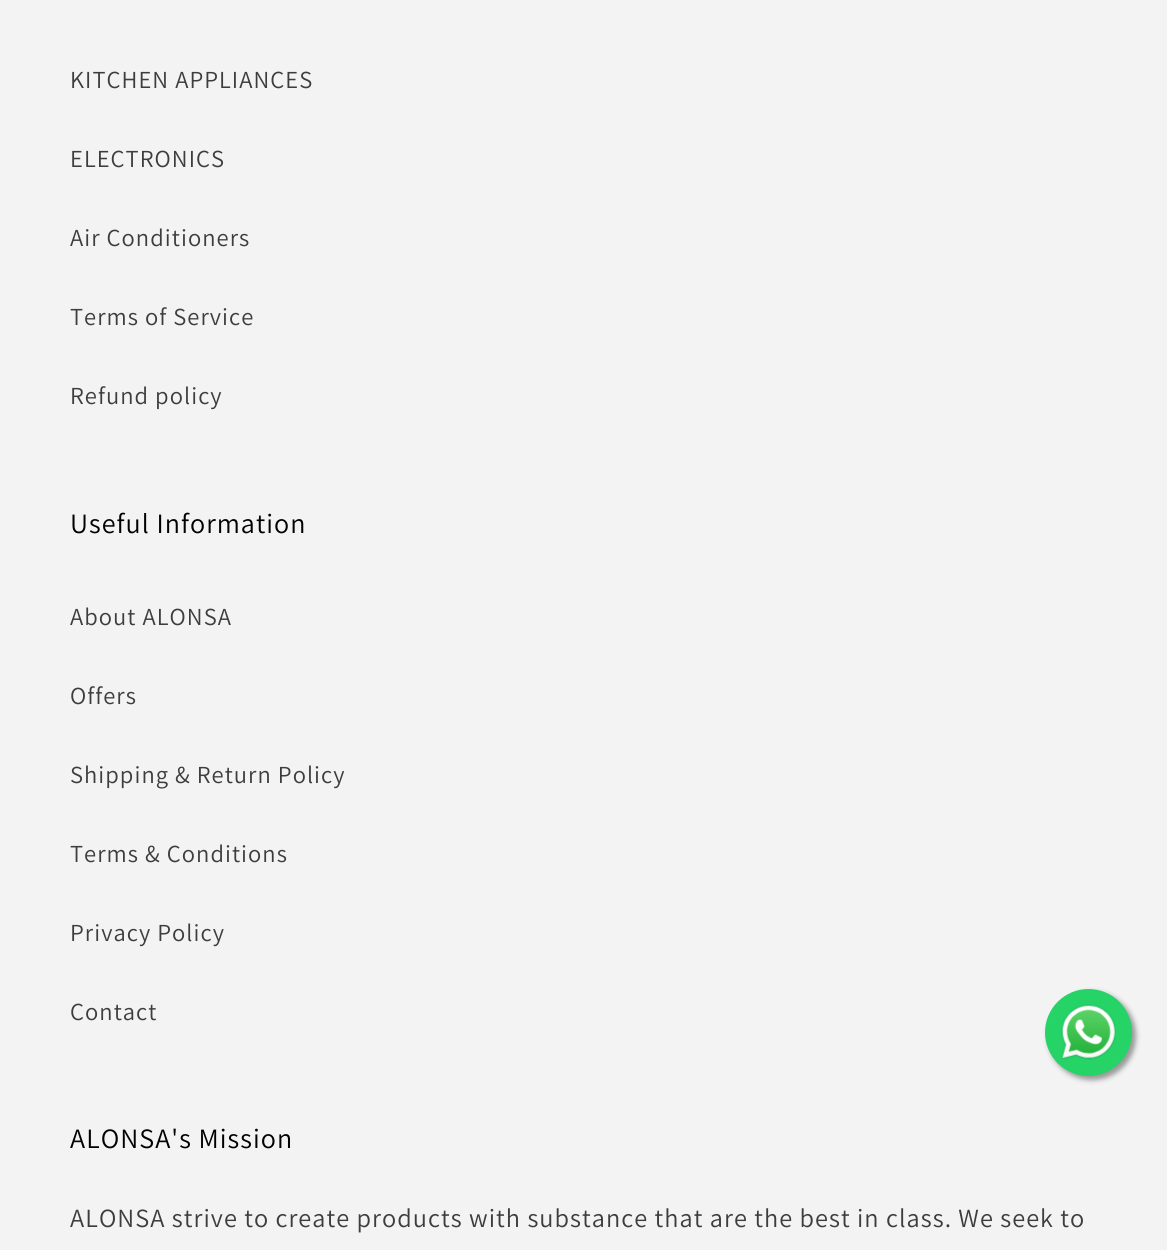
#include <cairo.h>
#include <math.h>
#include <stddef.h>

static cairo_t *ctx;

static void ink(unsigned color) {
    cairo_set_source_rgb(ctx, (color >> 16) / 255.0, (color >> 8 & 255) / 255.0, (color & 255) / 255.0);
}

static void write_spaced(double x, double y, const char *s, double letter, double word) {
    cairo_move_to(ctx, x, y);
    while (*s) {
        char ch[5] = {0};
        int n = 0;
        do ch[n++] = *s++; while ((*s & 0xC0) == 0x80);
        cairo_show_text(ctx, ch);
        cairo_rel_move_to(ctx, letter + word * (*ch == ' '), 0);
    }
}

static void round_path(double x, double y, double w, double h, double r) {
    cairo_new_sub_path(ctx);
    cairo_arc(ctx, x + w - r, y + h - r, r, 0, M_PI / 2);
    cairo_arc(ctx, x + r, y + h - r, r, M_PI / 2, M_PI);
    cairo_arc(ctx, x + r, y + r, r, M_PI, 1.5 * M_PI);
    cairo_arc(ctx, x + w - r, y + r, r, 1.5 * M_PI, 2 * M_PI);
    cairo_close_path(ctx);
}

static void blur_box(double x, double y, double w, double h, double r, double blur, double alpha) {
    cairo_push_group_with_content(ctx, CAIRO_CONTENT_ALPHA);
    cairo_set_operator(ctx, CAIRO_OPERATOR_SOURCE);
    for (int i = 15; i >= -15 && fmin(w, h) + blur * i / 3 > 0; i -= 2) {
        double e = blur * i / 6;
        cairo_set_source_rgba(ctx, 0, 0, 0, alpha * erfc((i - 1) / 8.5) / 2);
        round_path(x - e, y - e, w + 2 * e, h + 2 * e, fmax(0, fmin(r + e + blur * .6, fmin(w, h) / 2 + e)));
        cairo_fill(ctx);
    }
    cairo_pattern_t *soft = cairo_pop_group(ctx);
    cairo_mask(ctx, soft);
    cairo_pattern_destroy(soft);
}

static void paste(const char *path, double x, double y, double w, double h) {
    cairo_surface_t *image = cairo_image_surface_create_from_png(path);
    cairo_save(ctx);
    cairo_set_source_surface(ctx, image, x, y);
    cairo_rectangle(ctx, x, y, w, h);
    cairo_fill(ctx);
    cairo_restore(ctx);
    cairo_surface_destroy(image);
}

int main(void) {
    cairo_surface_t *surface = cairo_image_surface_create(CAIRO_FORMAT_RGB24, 1167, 1250);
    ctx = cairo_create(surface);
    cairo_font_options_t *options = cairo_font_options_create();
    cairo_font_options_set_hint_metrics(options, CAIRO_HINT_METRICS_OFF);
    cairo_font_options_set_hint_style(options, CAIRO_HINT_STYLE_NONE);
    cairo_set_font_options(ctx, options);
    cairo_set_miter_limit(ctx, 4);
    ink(0xf3f3f3);
    cairo_paint(ctx);
    cairo_select_font_face(ctx, "Assistant", CAIRO_FONT_SLANT_NORMAL, CAIRO_FONT_WEIGHT_NORMAL);
    cairo_set_font_size(ctx, 24.5);
    ink(0x3d3d3d);
    write_spaced(70, 88, "KITCHEN APPLIANCES", 1.05, 0);
    write_spaced(70, 167, "ELECTRONICS", 1.05, 0);
    write_spaced(70, 246, "Air Conditioners", 1.05, 0);
    write_spaced(70, 325, "Terms of Service", 1.05, 0);
    write_spaced(70, 404, "Refund policy", 1.05, 0);
    cairo_set_font_size(ctx, 28);
    ink(0x000000);
    write_spaced(70, 533, "Useful Information", 1.05, 0);
    cairo_set_font_size(ctx, 24.5);
    ink(0x3d3d3d);
    write_spaced(70, 625, "About ALONSA", 1.05, 0);
    write_spaced(70, 704, "Offers", 1.05, 0);
    write_spaced(70, 783, "Shipping & Return Policy", 1.05, 0);
    write_spaced(70, 862, "Terms & Conditions", 1.05, 0);
    write_spaced(70, 941, "Privacy Policy", 1.05, 0);
    write_spaced(70, 1020, "Contact", 1.05, 0);
    cairo_set_font_size(ctx, 28);
    ink(0x000000);
    write_spaced(70, 1148, "ALONSA's Mission", 1.05, 0);
    cairo_set_font_size(ctx, 26.25);
    ink(0x3d3d3d);
    write_spaced(70, 1227, "ALONSA strive to create products with substance that are the best in class. We seek to", 1.05, 0);
    ink(0x999999);
    blur_box(1048, 992, 88, 88, 44, 2.5, 1);
    ink(0x25d366);
    cairo_arc(ctx, 1088.5, 1032.5, 43.5, 0, 2 * M_PI);
    cairo_fill(ctx);
    paste("pic1.png", 1061, 1004, 55, 56);
    cairo_surface_write_to_png(surface, "screenshot.png");
    cairo_font_options_destroy(options);
    cairo_destroy(ctx);
    cairo_surface_destroy(surface);
    return 0;
}
